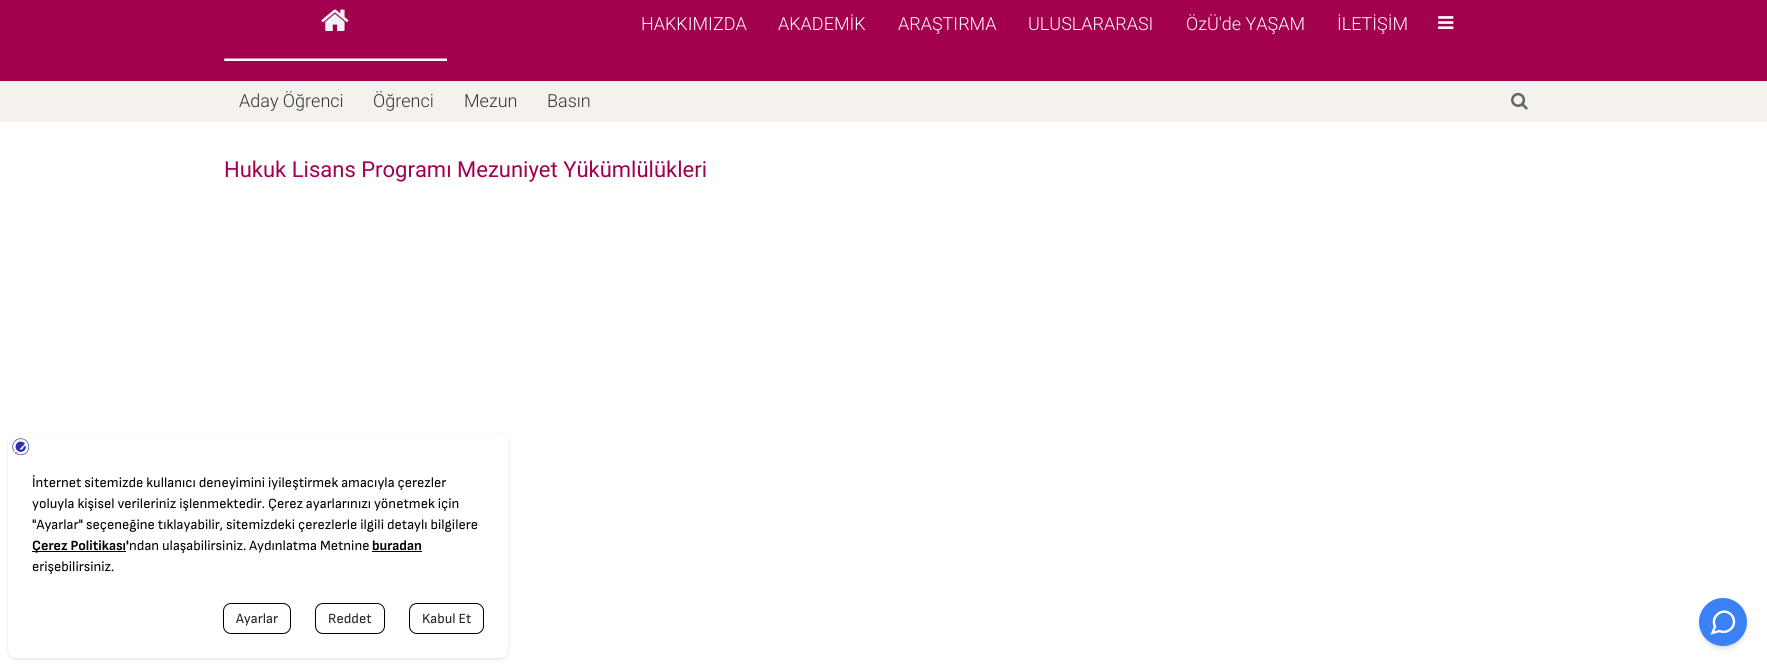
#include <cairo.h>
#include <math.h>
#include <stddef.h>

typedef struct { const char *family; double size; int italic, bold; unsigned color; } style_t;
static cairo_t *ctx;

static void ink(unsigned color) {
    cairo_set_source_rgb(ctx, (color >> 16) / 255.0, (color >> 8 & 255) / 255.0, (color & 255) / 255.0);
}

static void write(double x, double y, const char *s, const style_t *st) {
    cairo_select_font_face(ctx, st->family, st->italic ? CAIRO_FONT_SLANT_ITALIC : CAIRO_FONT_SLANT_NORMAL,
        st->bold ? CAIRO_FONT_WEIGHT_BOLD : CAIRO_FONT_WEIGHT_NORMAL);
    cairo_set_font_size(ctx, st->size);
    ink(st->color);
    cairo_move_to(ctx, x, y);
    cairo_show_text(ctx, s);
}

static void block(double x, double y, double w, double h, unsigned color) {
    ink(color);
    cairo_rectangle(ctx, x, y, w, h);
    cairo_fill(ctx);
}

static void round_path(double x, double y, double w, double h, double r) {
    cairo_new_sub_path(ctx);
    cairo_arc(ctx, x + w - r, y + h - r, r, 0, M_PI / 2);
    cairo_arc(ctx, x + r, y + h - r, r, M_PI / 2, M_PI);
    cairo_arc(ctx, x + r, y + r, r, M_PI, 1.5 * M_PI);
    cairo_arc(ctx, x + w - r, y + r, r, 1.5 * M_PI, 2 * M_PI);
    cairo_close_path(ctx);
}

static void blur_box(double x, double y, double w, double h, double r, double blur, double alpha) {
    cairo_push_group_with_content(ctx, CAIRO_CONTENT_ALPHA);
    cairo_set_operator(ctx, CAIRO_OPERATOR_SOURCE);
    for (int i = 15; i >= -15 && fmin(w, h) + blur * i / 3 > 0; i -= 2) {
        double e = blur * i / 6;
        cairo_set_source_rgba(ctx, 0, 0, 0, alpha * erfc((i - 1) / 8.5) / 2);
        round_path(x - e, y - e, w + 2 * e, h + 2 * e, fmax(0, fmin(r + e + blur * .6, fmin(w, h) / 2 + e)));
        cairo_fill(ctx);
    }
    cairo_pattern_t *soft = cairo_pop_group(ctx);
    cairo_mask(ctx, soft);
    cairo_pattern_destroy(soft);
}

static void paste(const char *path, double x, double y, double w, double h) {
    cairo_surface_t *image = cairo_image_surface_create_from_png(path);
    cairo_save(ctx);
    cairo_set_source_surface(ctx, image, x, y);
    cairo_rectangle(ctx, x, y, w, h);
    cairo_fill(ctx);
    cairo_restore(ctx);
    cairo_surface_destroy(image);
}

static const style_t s1 = {"Roboto Light", 18, 0, 0, 0xffffff};
static const style_t s2 = {"Roboto Light", 18, 0, 0, 0x333333};
static const style_t s3 = {"Roboto", 22, 0, 0, 0xa30050};
static const style_t s4 = {"Sofia Sans", 14, 0, 0, 0x000000};
static const style_t s5 = {"Sofia Sans", 14, 0, 1, 0x000000};
static const style_t s6 = {"Sofia Sans", 14, 0, 0, 0x222222};

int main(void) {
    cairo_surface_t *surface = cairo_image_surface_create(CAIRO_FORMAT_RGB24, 1767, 666);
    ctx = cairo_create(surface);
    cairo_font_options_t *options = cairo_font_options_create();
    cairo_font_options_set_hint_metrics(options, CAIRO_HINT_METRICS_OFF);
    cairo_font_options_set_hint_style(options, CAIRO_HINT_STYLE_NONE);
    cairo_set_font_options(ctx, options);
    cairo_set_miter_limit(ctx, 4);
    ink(0xffffff);
    cairo_paint(ctx);
    block(0, 0, 1767, 81, 0xa30050);
    paste("pic1.png", 321, 9, 28, 22);
    write(641, 30, "HAKKIMIZDA", &s1);
    write(778, 30, "AKADEMİK", &s1);
    write(898, 30, "ARAŞTIRMA", &s1);
    write(1028, 30, "ULUSLARARASI", &s1);
    write(1186, 30, "ÖzÜ'de YAŞAM", &s1);
    write(1337, 30, "İLETİŞİM", &s1);
    paste("pic2.png", 1438, 16, 16, 13);
    paste("pic3.png", 224, 58, 223, 3);
    block(0, 81, 1767, 41, 0xf5f2ed);
    write(239, 107, "Aday Öğrenci", &s2);
    write(373, 107, "Öğrenci", &s2);
    write(464, 107, "Mezun", &s2);
    write(547, 107, "Basın", &s2);
    paste("pic4.png", 1511, 92, 17, 18);
    write(224, 177, "Hukuk Lisans Programı Mezuniyet Yükümlülükleri", &s3);
    ink(0x000000);
    blur_box(9, 436, 498, 222, 7, 1, 0.1);
    blur_box(8, 435, 500, 224, 8, 1.5, 0.1);
    ink(0xffffff);
    round_path(8, 434, 500, 224, 8);
    cairo_fill(ctx);
    paste("pic5.png", 12, 438, 18, 18);
    write(32, 487, "İnternet sitemizde kullanıcı deneyimini iyileştirmek amacıyla çerezler", &s4);
    write(32, 508, "yoluyla kişisel verileriniz işlenmektedir. Çerez ayarlarınızı yönetmek için", &s4);
    write(32, 529, "\"Ayarlar\" seçeneğine tıklayabilir, sitemizdeki çerezlerle ilgili detaylı bilgilere", &s4);
    block(32, 551, 94, 1, 0x000000);
    write(32, 550, "Çerez Politikası'", &s5);
    write(129, 550, "ndan ulaşabilirsiniz. Aydınlatma Metnine", &s4);
    write(372, 550, "buradan", &s5);
    block(372, 551, 50, 1, 0x000000);
    write(32, 571, "erişebilirsiniz.", &s4);
    round_path(223.5, 603.5, 67, 30, 7.5);
    cairo_set_line_width(ctx, 1);
    cairo_stroke(ctx);
    write(236, 623, "Ayarlar", &s6);
    round_path(315.5, 603.5, 69, 30, 7.5);
    ink(0x000000);
    cairo_stroke(ctx);
    write(328, 623, "Reddet", &s6);
    round_path(409.5, 603.5, 74, 30, 7.5);
    ink(0x000000);
    cairo_stroke(ctx);
    write(422, 623, "Kabul Et", &s6);
    ink(0x000000);
    blur_box(1701, 602, 44, 44, 22, 2, 0.1);
    blur_box(1700, 603, 46, 46, 23, 3, 0.1);
    ink(0x3b81f6);
    cairo_arc(ctx, 1723, 622, 24, 0, 2 * M_PI);
    cairo_fill(ctx);
    cairo_new_path(ctx);
    cairo_move_to(ctx, 1734, 622);
    cairo_curve_to(ctx, 1734, 629, 1726, 634, 1719.5, 631);
    cairo_line_to(ctx, 1712.5, 633);
    cairo_line_to(ctx, 1715, 626.5);
    cairo_curve_to(ctx, 1710, 616.5, 1723, 606.5, 1731, 614.5);
    cairo_curve_to(ctx, 1733, 616.5, 1734, 619, 1734, 622);
    cairo_close_path(ctx);
    ink(0xffffff);
    cairo_set_line_width(ctx, 2.4);
    cairo_stroke(ctx);
    cairo_surface_write_to_png(surface, "screenshot.png");
    cairo_font_options_destroy(options);
    cairo_destroy(ctx);
    cairo_surface_destroy(surface);
    return 0;
}
